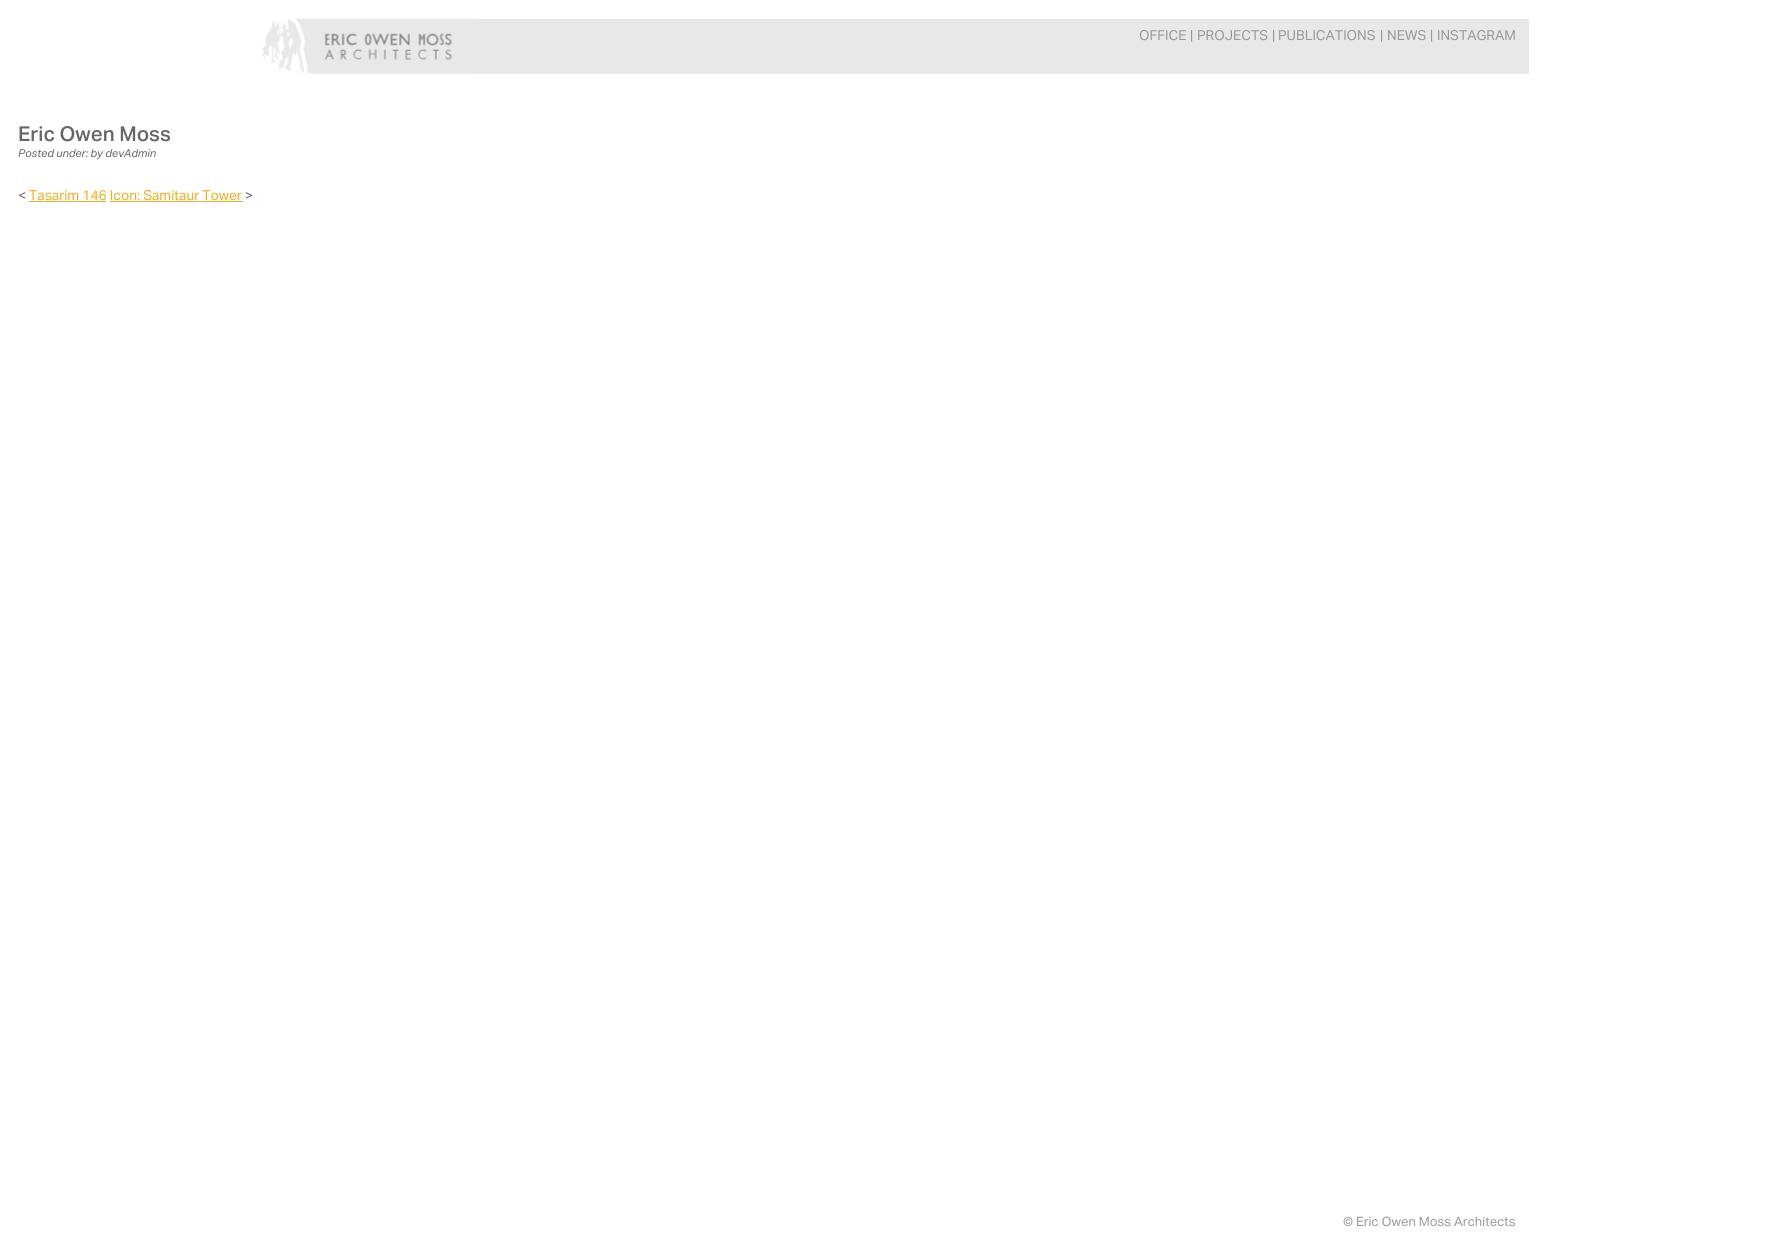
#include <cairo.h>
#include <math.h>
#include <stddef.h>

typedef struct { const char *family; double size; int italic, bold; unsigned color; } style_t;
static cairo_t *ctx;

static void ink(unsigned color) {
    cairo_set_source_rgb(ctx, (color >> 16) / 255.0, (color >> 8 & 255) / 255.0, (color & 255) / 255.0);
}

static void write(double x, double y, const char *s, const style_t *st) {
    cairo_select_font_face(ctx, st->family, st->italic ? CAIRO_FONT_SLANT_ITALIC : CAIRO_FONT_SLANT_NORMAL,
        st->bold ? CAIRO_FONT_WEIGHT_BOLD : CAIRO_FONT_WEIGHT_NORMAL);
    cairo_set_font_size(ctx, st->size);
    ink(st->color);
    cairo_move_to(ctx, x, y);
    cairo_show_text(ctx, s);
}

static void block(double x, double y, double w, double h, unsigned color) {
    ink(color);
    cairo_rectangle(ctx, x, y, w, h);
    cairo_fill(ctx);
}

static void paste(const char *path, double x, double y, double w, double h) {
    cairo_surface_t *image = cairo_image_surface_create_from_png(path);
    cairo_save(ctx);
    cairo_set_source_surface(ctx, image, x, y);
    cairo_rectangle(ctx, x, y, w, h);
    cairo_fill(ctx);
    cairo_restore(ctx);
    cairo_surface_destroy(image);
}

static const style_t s1 = {"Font", 13.75, 0, 0, 0x999999};
static const style_t s2 = {"Font Medium", 20.5, 0, 0, 0x666666};
static const style_t s3 = {"Font", 11, 1, 0, 0x666666};
static const style_t s4 = {"Font", 13.75, 0, 0, 0x666666};
static const style_t s5 = {"Font", 13.75, 0, 0, 0xf4ab1d};
static const style_t s6 = {"Font", 13, 0, 0, 0x999999};

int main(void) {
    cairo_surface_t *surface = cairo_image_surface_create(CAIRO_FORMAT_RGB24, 1789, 1243);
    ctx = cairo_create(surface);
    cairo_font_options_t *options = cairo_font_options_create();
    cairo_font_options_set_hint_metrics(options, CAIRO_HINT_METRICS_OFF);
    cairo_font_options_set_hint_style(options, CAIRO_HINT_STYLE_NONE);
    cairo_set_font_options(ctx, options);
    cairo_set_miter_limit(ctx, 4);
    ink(0xffffff);
    cairo_paint(ctx);
    paste("pic1.png", 262, 18, 213, 56);
    block(473, 19, 1056, 55, 0xe8e8e8);
    write(1139, 40, "OFFICE", &s1);
    write(1190, 40, "|", &s1);
    write(1197, 40, "PROJECTS", &s1);
    write(1272, 40, "|", &s1);
    write(1278, 40, "PUBLICATIONS", &s1);
    write(1380, 40, "|", &s1);
    write(1387, 40, "NEWS", &s1);
    write(1430, 40, "|", &s1);
    write(1437, 40, "INSTAGRAM", &s1);
    write(18, 141, "Eric Owen Moss", &s2);
    write(18, 157, "Posted under: by devAdmin", &s3);
    write(18, 200, "<", &s4);
    write(29, 200, "Tasarim 146 Icon: Samitaur Tower", &s5);
    block(29, 201, 77, 1, 0xf4ab1d);
    write(245, 200, ">", &s4);
    block(110, 201, 133, 1, 0xf4ab1d);
    write(1343, 1226, "© Eric Owen Moss Architects", &s6);
    cairo_surface_write_to_png(surface, "screenshot.png");
    cairo_font_options_destroy(options);
    cairo_destroy(ctx);
    cairo_surface_destroy(surface);
    return 0;
}
